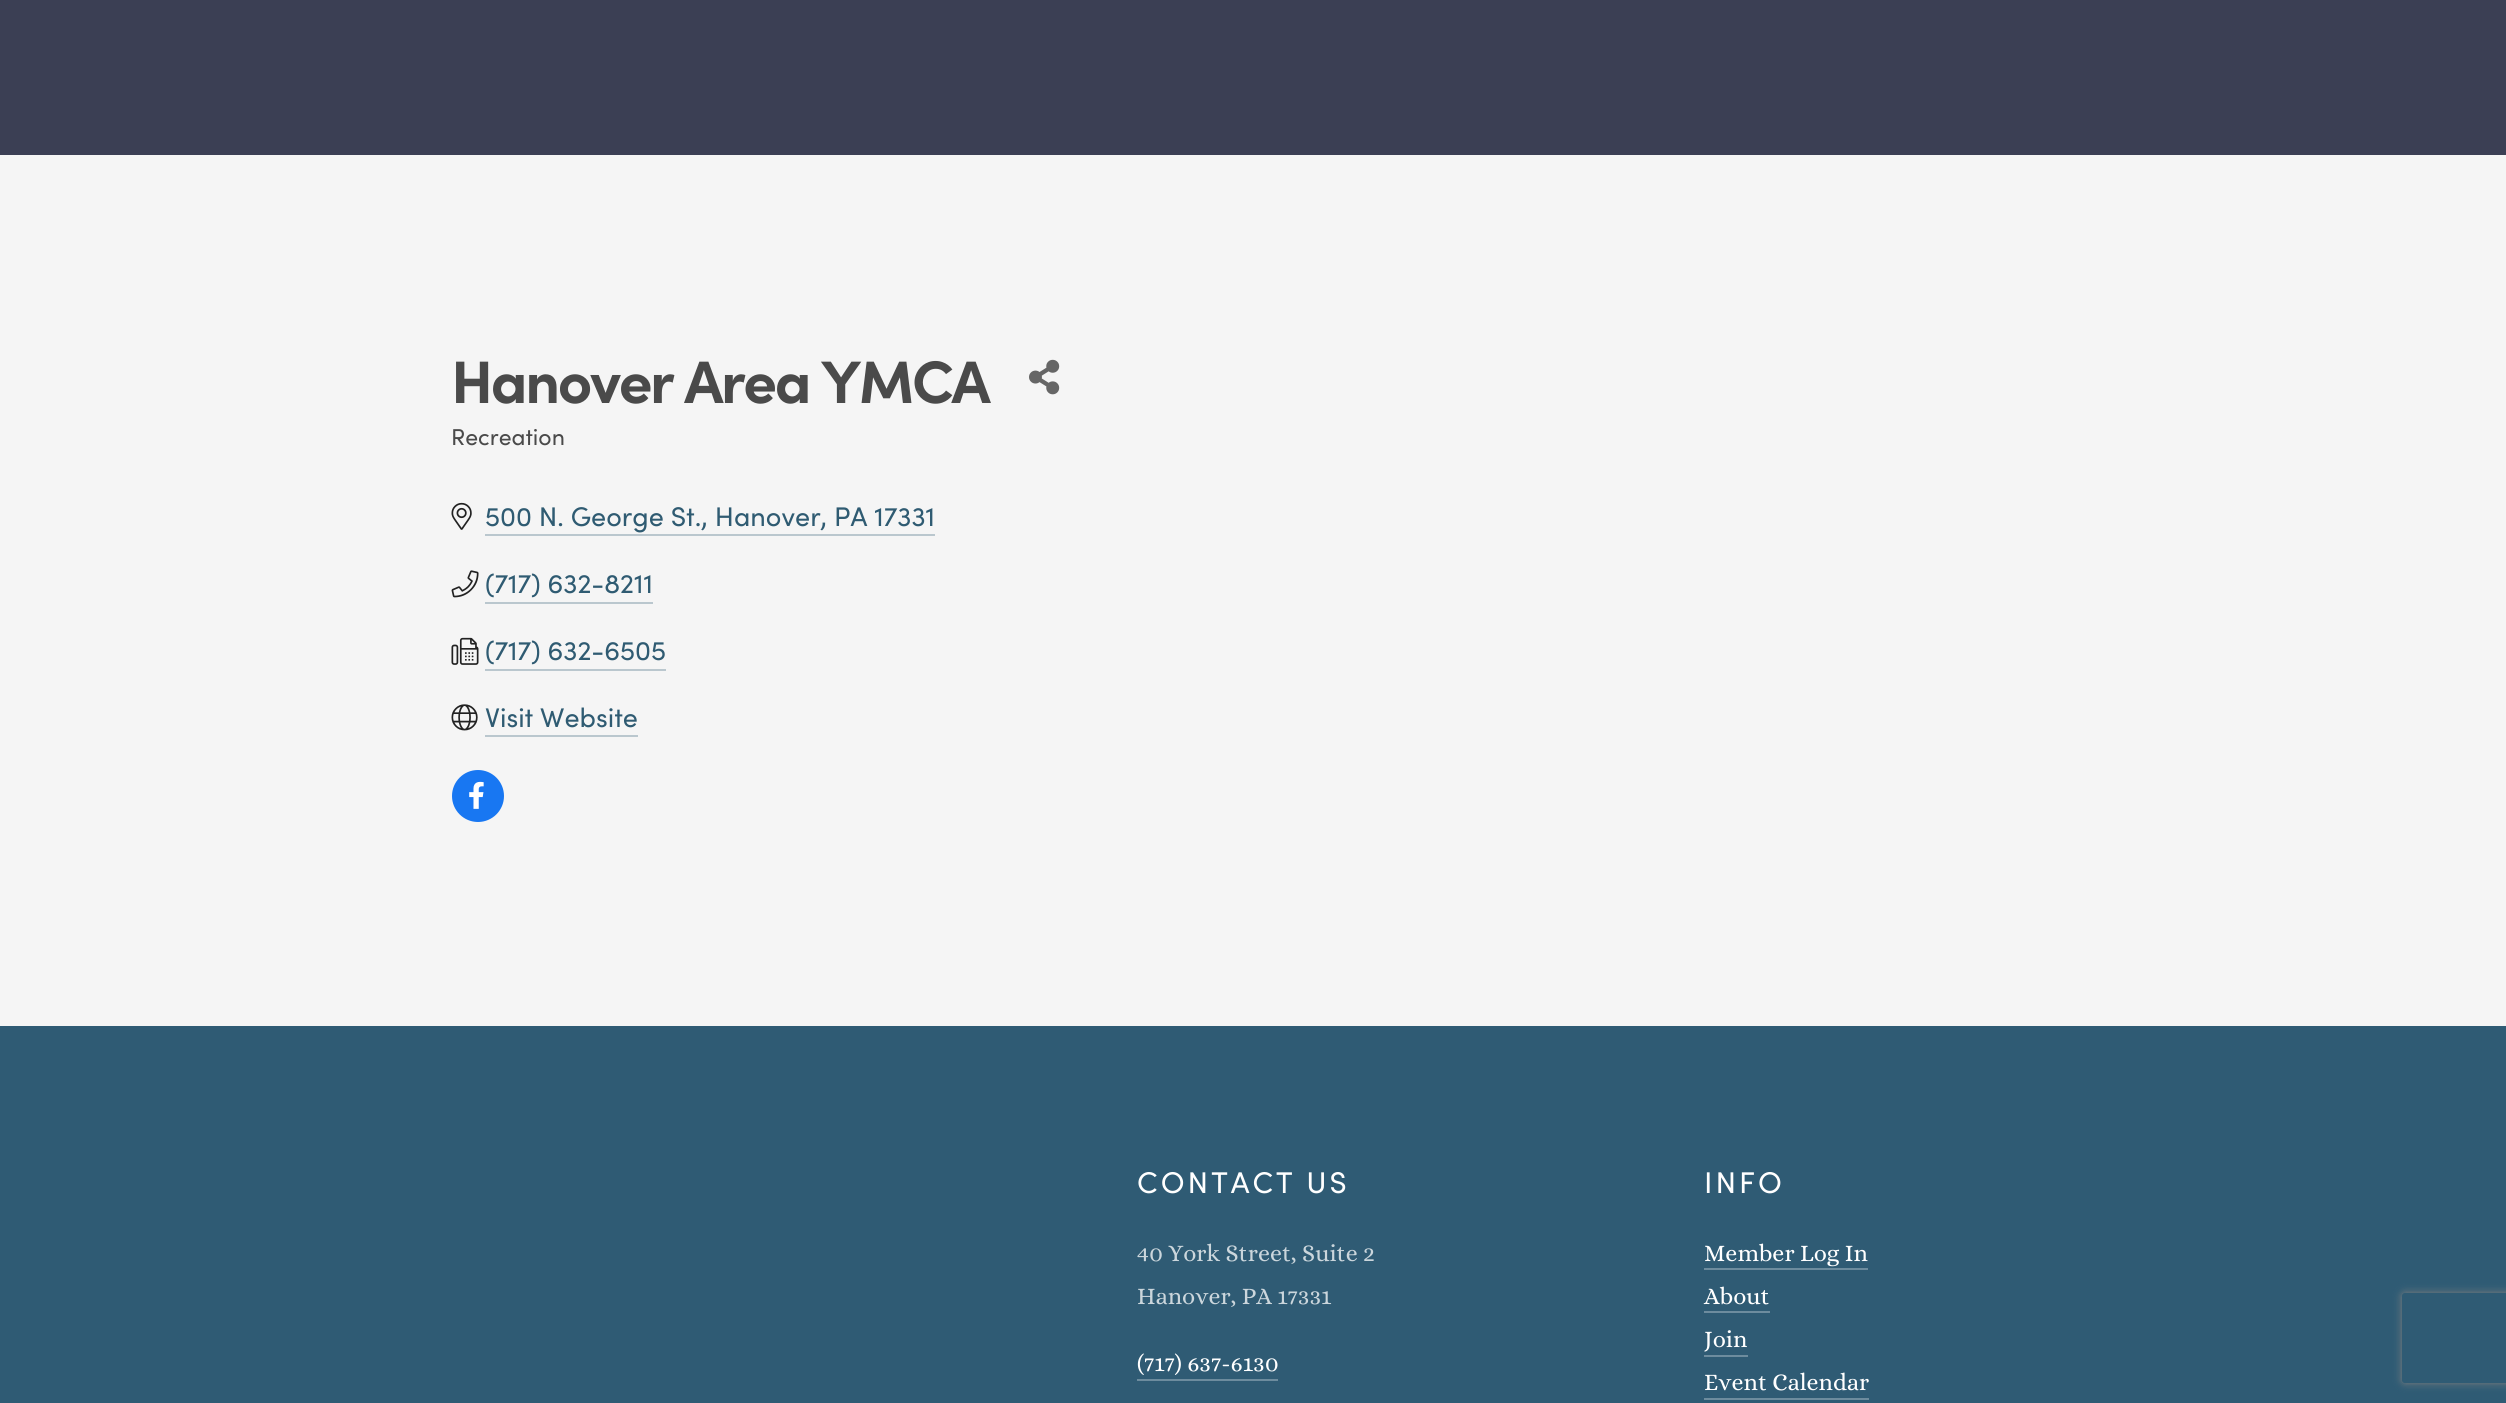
#include <cairo.h>
#include <math.h>
#include <stddef.h>

typedef struct { const char *family; double size; int italic, bold; unsigned color; } style_t;
static cairo_t *ctx;

static void ink(unsigned color) {
    cairo_set_source_rgb(ctx, (color >> 16) / 255.0, (color >> 8 & 255) / 255.0, (color & 255) / 255.0);
}

static void write(double x, double y, const char *s, const style_t *st) {
    cairo_select_font_face(ctx, st->family, st->italic ? CAIRO_FONT_SLANT_ITALIC : CAIRO_FONT_SLANT_NORMAL,
        st->bold ? CAIRO_FONT_WEIGHT_BOLD : CAIRO_FONT_WEIGHT_NORMAL);
    cairo_set_font_size(ctx, st->size);
    ink(st->color);
    cairo_move_to(ctx, x, y);
    cairo_show_text(ctx, s);
}

static void write_spaced(double x, double y, const char *s, double letter, double word) {
    cairo_move_to(ctx, x, y);
    while (*s) {
        char ch[5] = {0};
        int n = 0;
        do ch[n++] = *s++; while ((*s & 0xC0) == 0x80);
        cairo_show_text(ctx, ch);
        cairo_rel_move_to(ctx, letter + word * (*ch == ' '), 0);
    }
}

static void block(double x, double y, double w, double h, unsigned color) {
    ink(color);
    cairo_rectangle(ctx, x, y, w, h);
    cairo_fill(ctx);
}

static void round_path(double x, double y, double w, double h, double r) {
    cairo_new_sub_path(ctx);
    cairo_arc(ctx, x + w - r, y + h - r, r, 0, M_PI / 2);
    cairo_arc(ctx, x + r, y + h - r, r, M_PI / 2, M_PI);
    cairo_arc(ctx, x + r, y + r, r, M_PI, 1.5 * M_PI);
    cairo_arc(ctx, x + w - r, y + r, r, 1.5 * M_PI, 2 * M_PI);
    cairo_close_path(ctx);
}

static void blur_box(double x, double y, double w, double h, double r, double blur, double alpha) {
    cairo_push_group_with_content(ctx, CAIRO_CONTENT_ALPHA);
    cairo_set_operator(ctx, CAIRO_OPERATOR_SOURCE);
    for (int i = 15; i >= -15 && fmin(w, h) + blur * i / 3 > 0; i -= 2) {
        double e = blur * i / 6;
        cairo_set_source_rgba(ctx, 0, 0, 0, alpha * erfc((i - 1) / 8.5) / 2);
        round_path(x - e, y - e, w + 2 * e, h + 2 * e, fmax(0, fmin(r + e + blur * .6, fmin(w, h) / 2 + e)));
        cairo_fill(ctx);
    }
    cairo_pattern_t *soft = cairo_pop_group(ctx);
    cairo_mask(ctx, soft);
    cairo_pattern_destroy(soft);
}

static void paste(const char *path, double x, double y, double w, double h) {
    cairo_surface_t *image = cairo_image_surface_create_from_png(path);
    cairo_save(ctx);
    cairo_set_source_surface(ctx, image, x, y);
    cairo_rectangle(ctx, x, y, w, h);
    cairo_fill(ctx);
    cairo_restore(ctx);
    cairo_surface_destroy(image);
}

static const style_t s1 = {"Sofia", 23, 0, 0, 0x4a4a4a};
static const style_t s2 = {"Sofia", 27, 0, 0, 0x2f5b72};
static const style_t s3 = {"Alice", 24, 0, 0, 0xcbd6dc};
static const style_t s4 = {"Alice", 24, 0, 0, 0xffffff};

int main(void) {
    cairo_surface_t *surface = cairo_image_surface_create(CAIRO_FORMAT_RGB24, 2506, 1403);
    ctx = cairo_create(surface);
    cairo_font_options_t *options = cairo_font_options_create();
    cairo_font_options_set_hint_metrics(options, CAIRO_HINT_METRICS_OFF);
    cairo_font_options_set_hint_style(options, CAIRO_HINT_STYLE_NONE);
    cairo_set_font_options(ctx, options);
    cairo_set_miter_limit(ctx, 4);
    ink(0x2f5b74);
    cairo_paint(ctx);
    block(0, 0, 2506, 155, 0x3b3f54);
    block(0, 155, 2506, 871, 0xf5f5f5);
    cairo_select_font_face(ctx, "Sofia", CAIRO_FONT_SLANT_NORMAL, CAIRO_FONT_WEIGHT_BOLD);
    cairo_set_font_size(ctx, 60);
    ink(0x4a4a4a);
    write_spaced(451, 403, "Hanover Area YMCA", -2.4, 0);
    paste("pic1.png", 1029, 359, 31, 36);
    write(451, 445, "Recreation", &s1);
    block(485, 534, 450, 2, 0xbac7ce);
    paste("pic2.png", 451, 502, 21, 28);
    write(485, 526, "500 N. George St., Hanover, PA 17331", &s2);
    block(485, 602, 168, 2, 0xbac7ce);
    paste("pic3.png", 451, 570, 28, 28);
    write(485, 593, "(717) 632-8211", &s2);
    block(485, 669, 181, 2, 0xbac7ce);
    paste("pic4.png", 451, 637, 28, 28);
    write(485, 660, "(717) 632-6505", &s2);
    block(485, 735, 153, 2, 0xbac7ce);
    paste("pic5.png", 451, 704, 27, 27);
    write(485, 727, "Visit Website", &s2);
    ink(0x1877f2);
    cairo_new_path(ctx);
    cairo_arc(ctx, 478, 796, 26, 0, 2 * M_PI);
    cairo_fill(ctx);
    paste("pic6.png", 469, 781, 15, 28);
    cairo_set_font_size(ctx, 30);
    ink(0xffffff);
    write_spaced(1137, 1193, "CONTACT US", 3, 0);
    write(1137, 1261, "40 York Street, Suite 2", &s3);
    write(1137, 1304, "Hanover, PA 17331", &s3);
    write(1137, 1371, "(717) 637-6130", &s4);
    block(1137, 1379, 141, 2, 0x6d8c9e);
    cairo_select_font_face(ctx, "Sofia", CAIRO_FONT_SLANT_NORMAL, CAIRO_FONT_WEIGHT_NORMAL);
    cairo_set_font_size(ctx, 30);
    ink(0xffffff);
    write_spaced(1704, 1193, "INFO", 3, 0);
    write(1704, 1261, "Member Log In", &s4);
    block(1704, 1268, 164, 2, 0x6d8c9e);
    write(1704, 1304, "About", &s4);
    block(1704, 1311, 66, 2, 0x6d8c9e);
    write(1704, 1347, "Join", &s4);
    block(1704, 1355, 44, 2, 0x6d8c9e);
    write(1704, 1390, "Event Calendar", &s4);
    block(1704, 1398, 165, 2, 0x6d8c9e);
    cairo_save(ctx);
    cairo_set_fill_rule(ctx, CAIRO_FILL_RULE_EVEN_ODD);
    cairo_new_path(ctx);
    cairo_move_to(ctx, 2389, 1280);
    cairo_line_to(ctx, 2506, 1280);
    cairo_line_to(ctx, 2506, 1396);
    cairo_line_to(ctx, 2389, 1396);
    cairo_close_path(ctx);
    cairo_move_to(ctx, 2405, 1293);
    cairo_line_to(ctx, 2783, 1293);
    cairo_curve_to(ctx, 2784.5, 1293, 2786, 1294.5, 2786, 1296);
    cairo_line_to(ctx, 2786, 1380);
    cairo_curve_to(ctx, 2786, 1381.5, 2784.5, 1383, 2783, 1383);
    cairo_line_to(ctx, 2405, 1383);
    cairo_curve_to(ctx, 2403.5, 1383, 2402, 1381.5, 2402, 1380);
    cairo_line_to(ctx, 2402, 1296);
    cairo_curve_to(ctx, 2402, 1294.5, 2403.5, 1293, 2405, 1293);
    cairo_close_path(ctx);
    cairo_clip(ctx);
    ink(0x808080);
    blur_box(2402, 1293, 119, 90, 3, 4, 1);
    cairo_restore(ctx);
    cairo_surface_write_to_png(surface, "screenshot.png");
    cairo_font_options_destroy(options);
    cairo_destroy(ctx);
    cairo_surface_destroy(surface);
    return 0;
}
